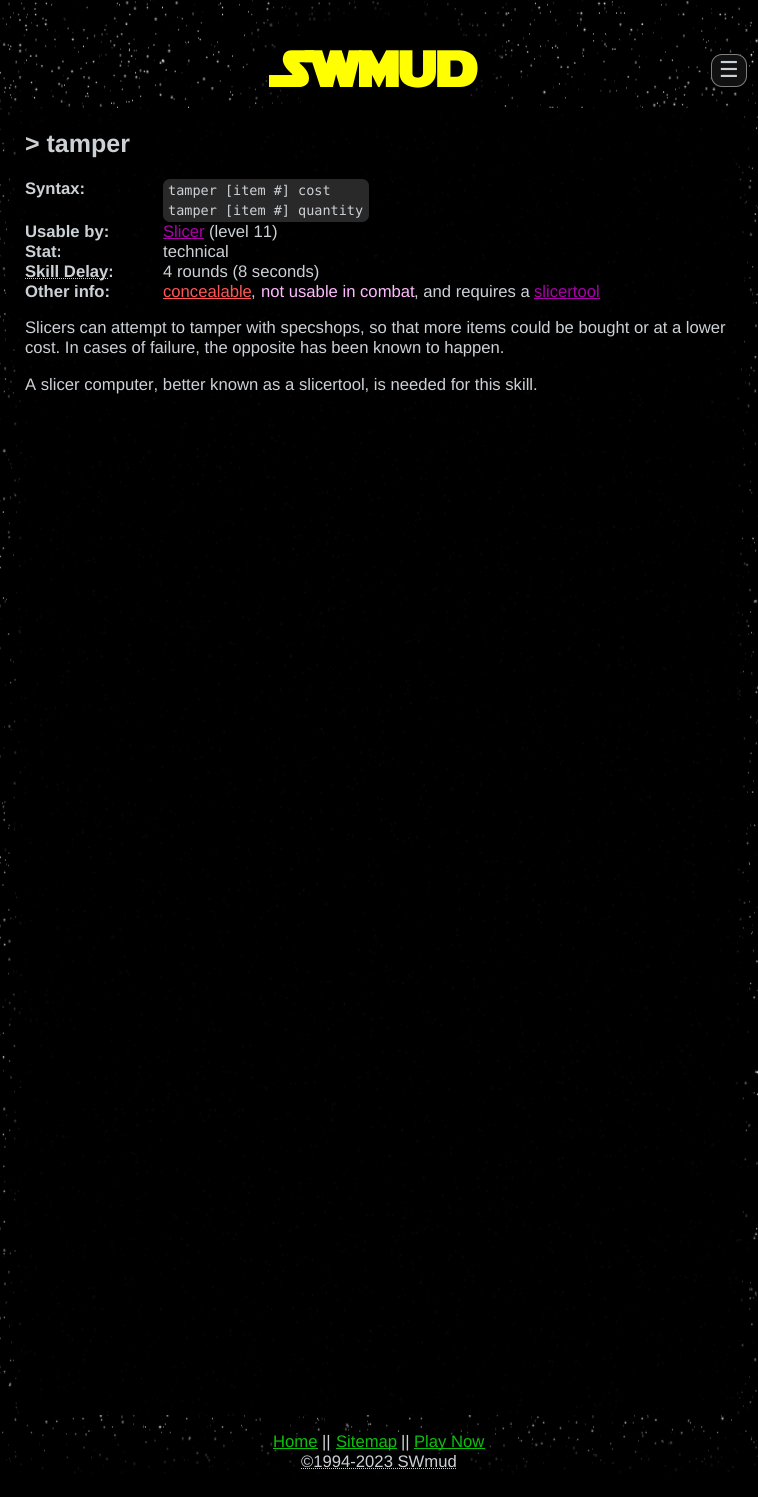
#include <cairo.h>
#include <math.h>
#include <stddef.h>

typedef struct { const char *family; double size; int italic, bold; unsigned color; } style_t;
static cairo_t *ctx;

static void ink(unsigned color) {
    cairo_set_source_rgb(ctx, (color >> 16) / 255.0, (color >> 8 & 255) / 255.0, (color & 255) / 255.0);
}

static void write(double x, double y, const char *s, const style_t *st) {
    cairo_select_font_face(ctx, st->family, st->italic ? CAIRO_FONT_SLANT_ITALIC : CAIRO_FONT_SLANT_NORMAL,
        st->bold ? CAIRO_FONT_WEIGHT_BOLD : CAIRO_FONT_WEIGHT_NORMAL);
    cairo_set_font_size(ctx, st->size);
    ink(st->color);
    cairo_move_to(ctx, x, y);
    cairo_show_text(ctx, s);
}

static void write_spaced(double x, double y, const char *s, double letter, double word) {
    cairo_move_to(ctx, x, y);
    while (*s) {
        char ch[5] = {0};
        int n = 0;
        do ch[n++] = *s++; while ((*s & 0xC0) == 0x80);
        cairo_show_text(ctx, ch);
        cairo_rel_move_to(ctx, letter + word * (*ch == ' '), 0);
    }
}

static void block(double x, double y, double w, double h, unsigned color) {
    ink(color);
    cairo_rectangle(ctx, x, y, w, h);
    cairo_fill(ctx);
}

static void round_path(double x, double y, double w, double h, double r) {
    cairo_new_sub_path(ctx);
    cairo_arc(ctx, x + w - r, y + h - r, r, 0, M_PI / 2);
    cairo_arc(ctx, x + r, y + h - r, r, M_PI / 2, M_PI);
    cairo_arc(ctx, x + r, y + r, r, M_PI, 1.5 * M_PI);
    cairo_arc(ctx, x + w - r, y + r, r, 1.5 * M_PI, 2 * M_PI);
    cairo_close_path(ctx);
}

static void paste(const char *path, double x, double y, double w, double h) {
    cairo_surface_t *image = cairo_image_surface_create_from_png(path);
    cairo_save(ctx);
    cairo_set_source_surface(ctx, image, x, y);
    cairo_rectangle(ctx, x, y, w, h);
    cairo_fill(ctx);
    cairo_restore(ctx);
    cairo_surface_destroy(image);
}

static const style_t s1 = {"DejaVu Sans", 22, 0, 0, 0xccd1d6};
static const style_t s2 = {"Liberation Sans", 25, 0, 1, 0xccd1d6};
static const style_t s3 = {"Liberation Sans", 16.65, 0, 1, 0xccd1d6};
static const style_t s4 = {"DejaVu Sans Mono", 13.5, 0, 0, 0xccd1d6};
static const style_t s5 = {"Liberation Sans", 16.65, 0, 0, 0xaa00aa};
static const style_t s6 = {"Liberation Sans", 16.65, 0, 0, 0xccd1d6};
static const style_t s7 = {"Liberation Sans", 16.65, 0, 0, 0xff5555};
static const style_t s8 = {"Liberation Sans", 16.65, 0, 0, 0xffbbff};
static const style_t s9 = {"Liberation Sans", 16.65, 0, 0, 0x0dbf0d};

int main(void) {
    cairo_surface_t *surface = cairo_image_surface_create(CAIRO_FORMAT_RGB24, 758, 1497);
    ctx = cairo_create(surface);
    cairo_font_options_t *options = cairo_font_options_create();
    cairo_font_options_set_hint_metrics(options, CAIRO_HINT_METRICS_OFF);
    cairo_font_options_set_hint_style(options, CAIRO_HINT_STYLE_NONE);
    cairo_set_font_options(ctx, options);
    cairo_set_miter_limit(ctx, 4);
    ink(0xffffff);
    cairo_paint(ctx);
    paste("pic1.png", 0, 0, 758, 1497);
    cairo_select_font_face(ctx, "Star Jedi", CAIRO_FONT_SLANT_NORMAL, CAIRO_FONT_WEIGHT_BOLD);
    cairo_set_font_size(ctx, 50);
    ink(0xffff00);
    write_spaced(281, 87, "SW", 2, 0);
    write_spaced(358, 87, "mud", 1, 0);
    ink(0x111111);
    round_path(711.5, 54.5, 35, 32, 10.5);
    cairo_fill_preserve(ctx);
    ink(0x808080);
    cairo_set_line_width(ctx, 1);
    cairo_stroke(ctx);
    write(719, 77, "☰", &s1);
    write(25, 152, "> tamper", &s2);
    write(25, 194, "Syntax:", &s3);
    ink(0x292929);
    round_path(163, 179, 206, 43, 7);
    cairo_fill(ctx);
    write(168, 195, "tamper [item #] cost", &s4);
    write(168, 215, "tamper [item #] quantity", &s4);
    write(25, 237, "Usable by:", &s3);
    write(163, 237, "Slicer", &s5);
    block(163, 238, 41, 1, 0xaa00aa);
    write(209, 237, "(level 11)", &s6);
    write(25, 257, "Stat:", &s3);
    write(163, 257, "technical", &s6);
    cairo_new_path(ctx);
    cairo_move_to(ctx, 25, 278.5);
    cairo_line_to(ctx, 108, 278.5);
    cairo_set_dash(ctx, (double[]){1, 1}, 2, 0);
    cairo_stroke(ctx);
    write(25, 277, "Skill Delay:", &s3);
    write(163, 277, "4 rounds (8 seconds)", &s6);
    write(25, 297, "Other info:", &s3);
    write(163, 297, "concealable", &s7);
    block(163, 298, 88, 1, 0xff5555);
    write(251, 297, ",", &s6);
    write(261, 297, "not usable in combat", &s8);
    write(414, 297, ", and requires a", &s6);
    write(534, 297, "slicertool", &s5);
    block(534, 298, 66, 1, 0xaa00aa);
    write(25, 333, "Slicers can attempt to tamper with specshops, so that more items could be bought or at a lower", &s6);
    write(25, 353, "cost. In cases of failure, the opposite has been known to happen.", &s6);
    write(25, 390, "A slicer computer, better known as a slicertool, is needed for this skill.", &s6);
    write(273, 1447, "Home", &s9);
    block(273, 1448, 45, 1, 0x0dbf0d);
    write(322, 1447, "||", &s6);
    block(336, 1448, 61, 1, 0x0dbf0d);
    write(336, 1447, "Sitemap", &s9);
    write(401, 1447, "||", &s6);
    block(414, 1448, 71, 1, 0x0dbf0d);
    write(414, 1447, "Play Now", &s9);
    write(301, 1467, "©1994-2023 SWmud", &s6);
    cairo_new_path(ctx);
    cairo_move_to(ctx, 301, 1468.5);
    cairo_line_to(ctx, 456.5, 1468.5);
    cairo_stroke(ctx);
    cairo_surface_write_to_png(surface, "screenshot.png");
    cairo_font_options_destroy(options);
    cairo_destroy(ctx);
    cairo_surface_destroy(surface);
    return 0;
}
